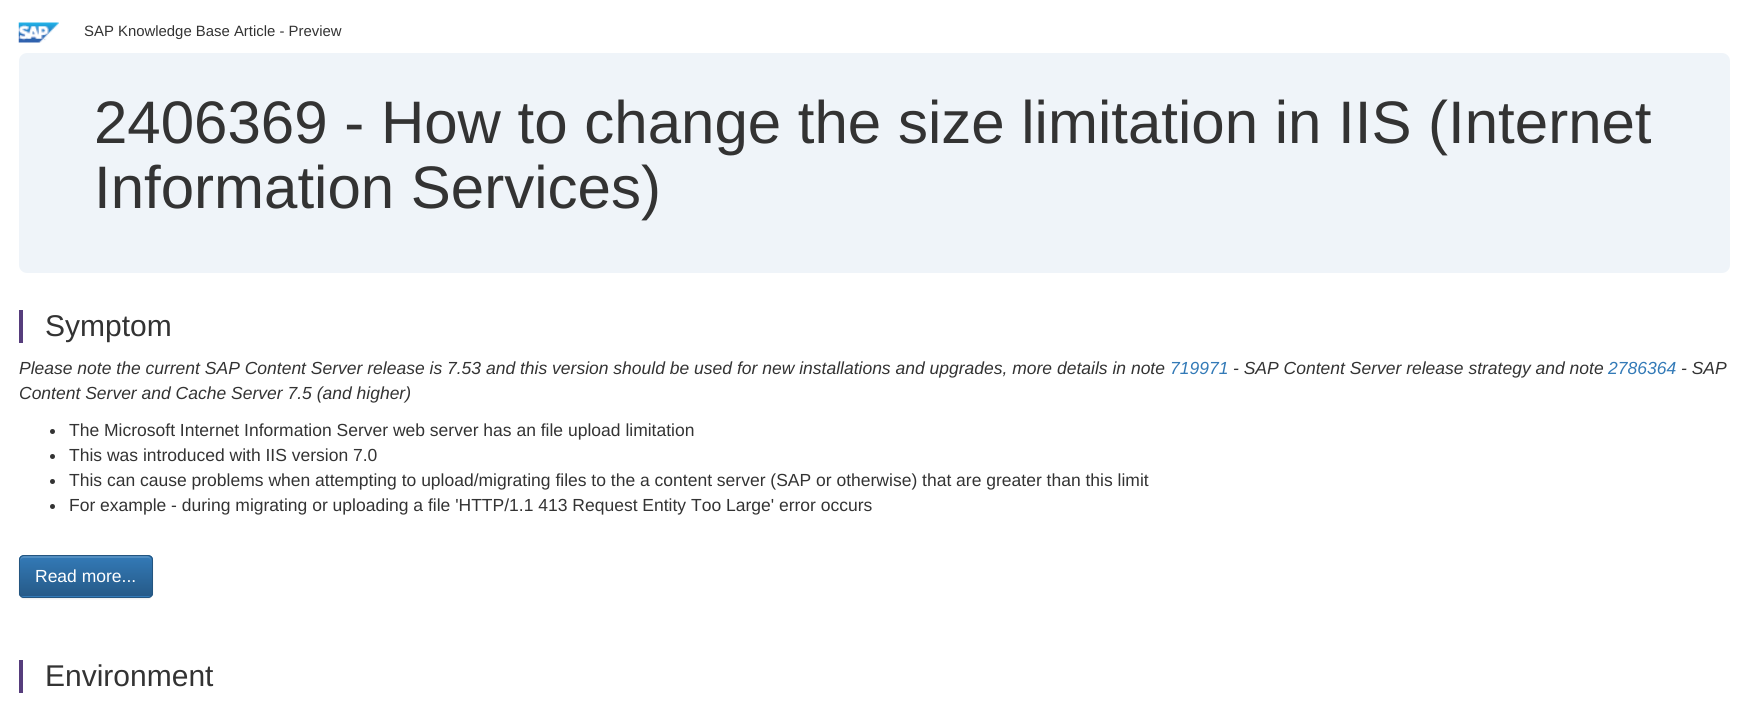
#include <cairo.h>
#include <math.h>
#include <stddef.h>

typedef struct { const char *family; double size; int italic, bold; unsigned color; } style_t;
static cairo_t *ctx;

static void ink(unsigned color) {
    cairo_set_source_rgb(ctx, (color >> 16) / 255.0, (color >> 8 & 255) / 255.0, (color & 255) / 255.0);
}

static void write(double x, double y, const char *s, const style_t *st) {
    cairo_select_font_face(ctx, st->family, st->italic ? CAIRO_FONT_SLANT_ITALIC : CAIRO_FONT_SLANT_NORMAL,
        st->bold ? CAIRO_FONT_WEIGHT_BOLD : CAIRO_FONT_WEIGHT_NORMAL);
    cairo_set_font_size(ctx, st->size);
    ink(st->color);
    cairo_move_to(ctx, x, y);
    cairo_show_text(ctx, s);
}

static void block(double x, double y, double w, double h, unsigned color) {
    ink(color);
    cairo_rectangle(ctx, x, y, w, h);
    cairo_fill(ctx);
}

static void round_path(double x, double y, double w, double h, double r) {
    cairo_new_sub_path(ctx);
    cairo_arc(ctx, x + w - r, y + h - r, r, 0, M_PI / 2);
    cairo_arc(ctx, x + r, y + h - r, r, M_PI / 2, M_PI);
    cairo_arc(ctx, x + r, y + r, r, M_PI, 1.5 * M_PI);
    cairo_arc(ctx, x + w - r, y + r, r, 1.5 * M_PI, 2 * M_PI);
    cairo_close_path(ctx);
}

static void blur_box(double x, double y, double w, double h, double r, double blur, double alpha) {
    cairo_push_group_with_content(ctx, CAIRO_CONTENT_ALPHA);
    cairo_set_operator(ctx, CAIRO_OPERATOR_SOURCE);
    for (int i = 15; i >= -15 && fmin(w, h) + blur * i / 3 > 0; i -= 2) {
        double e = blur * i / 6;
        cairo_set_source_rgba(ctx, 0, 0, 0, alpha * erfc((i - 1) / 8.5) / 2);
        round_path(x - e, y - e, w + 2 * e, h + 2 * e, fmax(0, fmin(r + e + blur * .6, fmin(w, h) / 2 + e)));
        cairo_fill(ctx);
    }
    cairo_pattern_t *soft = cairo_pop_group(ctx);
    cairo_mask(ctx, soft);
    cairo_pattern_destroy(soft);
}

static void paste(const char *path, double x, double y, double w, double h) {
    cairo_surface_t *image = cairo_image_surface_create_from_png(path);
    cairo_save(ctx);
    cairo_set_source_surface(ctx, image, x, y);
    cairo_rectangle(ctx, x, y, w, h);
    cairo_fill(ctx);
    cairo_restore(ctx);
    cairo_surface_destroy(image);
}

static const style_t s1 = {"Liberation Sans", 14.9, 0, 0, 0x333333};
static const style_t s2 = {"Liberation Sans", 60, 0, 0, 0x333333};
static const style_t s3 = {"Liberation Sans", 30, 0, 0, 0x333333};
static const style_t s4 = {"Liberation Sans", 17.5, 1, 0, 0x333333};
static const style_t s5 = {"Liberation Sans", 17.5, 1, 0, 0x337ab7};
static const style_t s6 = {"Liberation Sans", 17.5, 0, 0, 0x333333};
static const style_t s7 = {"Liberation Sans", 17.5, 0, 0, 0xffffff};

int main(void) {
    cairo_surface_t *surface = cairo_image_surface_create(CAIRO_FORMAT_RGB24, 1748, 704);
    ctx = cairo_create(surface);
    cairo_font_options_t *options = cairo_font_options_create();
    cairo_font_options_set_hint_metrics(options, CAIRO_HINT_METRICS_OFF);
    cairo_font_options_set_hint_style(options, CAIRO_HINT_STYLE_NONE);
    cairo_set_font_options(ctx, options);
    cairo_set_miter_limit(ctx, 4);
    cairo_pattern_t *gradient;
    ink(0xffffff);
    cairo_paint(ctx);
    paste("pic1.png", 18, 22, 41, 21);
    write(84, 36, "SAP Knowledge Base Article - Preview", &s1);
    ink(0xeff4f9);
    round_path(19, 53, 1711, 220, 8);
    cairo_fill(ctx);
    write(94, 143, "2406369 - How to change the size limitation in IIS (Internet", &s2);
    write(94, 208, "Information Services)", &s2);
    block(19, 310, 4, 33, 0x563d7c);
    write(45, 336, "Symptom", &s3);
    write(19, 374, "Please note the current SAP Content Server release is 7.53 and this version should be used for new installations and upgrades, more details in note", &s4);
    write(1170, 374, "719971", &s5);
    write(1233, 374, "- SAP Content Server release strategy and note", &s4);
    write(1608, 374, "2786364", &s5);
    write(1681, 374, "- SAP", &s4);
    write(19, 399, "Content Server and Cache Server 7.5 (and higher)", &s4);
    cairo_new_path(ctx);
    cairo_arc(ctx, 52.5, 431.5, 2.5, 0, 2 * M_PI);
    cairo_fill(ctx);
    write(69, 436, "The Microsoft Internet Information Server web server has an file upload limitation", &s6);
    cairo_new_path(ctx);
    cairo_arc(ctx, 52.5, 456.5, 2.5, 0, 2 * M_PI);
    cairo_fill(ctx);
    write(69, 461, "This was introduced with IIS version 7.0", &s6);
    cairo_new_path(ctx);
    cairo_arc(ctx, 52.5, 481.5, 2.5, 0, 2 * M_PI);
    cairo_fill(ctx);
    write(69, 486, "This can cause problems when attempting to upload/migrating files to the a content server (SAP or otherwise) that are greater than this limit", &s6);
    cairo_new_path(ctx);
    cairo_arc(ctx, 52.5, 506.5, 2.5, 0, 2 * M_PI);
    cairo_fill(ctx);
    write(69, 511, "For example - during migrating or uploading a file 'HTTP/1.1 413 Request Entity Too Large' error occurs", &s6);
    ink(0x000000);
    blur_box(19, 556, 134, 43, 5, 0.5, 0.07);
    ink(0x337ab7);
    round_path(19, 555, 134, 43, 5);
    cairo_fill(ctx);
    cairo_save(ctx);
    round_path(19, 555, 134, 43, 5);
    cairo_clip(ctx);
    gradient = cairo_pattern_create_linear(86, 556, 86, 596);
    cairo_pattern_add_color_stop_rgba(gradient, 0, 0.2, 0.478, 0.718, 1);
    cairo_pattern_add_color_stop_rgba(gradient, 1, 0.149, 0.353, 0.533, 1);
    cairo_set_source(ctx, gradient);
    cairo_pattern_destroy(gradient);
    cairo_rectangle(ctx, 19, 556, 134, 40);
    cairo_fill(ctx);
    cairo_restore(ctx);
    ink(0x528ec1);
    cairo_new_path(ctx);
    cairo_move_to(ctx, 24, 558);
    cairo_line_to(ctx, 148, 558);
    cairo_curve_to(ctx, 150, 558, 151, 559, 151, 561);
    cairo_line_to(ctx, 151, 560);
    cairo_curve_to(ctx, 151, 558, 149, 556, 147, 556);
    cairo_line_to(ctx, 24, 556);
    cairo_curve_to(ctx, 22, 556, 20, 558, 20, 560);
    cairo_line_to(ctx, 20, 561);
    cairo_curve_to(ctx, 20, 559, 22, 558, 24, 558);
    cairo_close_path(ctx);
    cairo_fill(ctx);
    round_path(19.5, 555.5, 133, 42, 4.5);
    ink(0x245580);
    cairo_set_line_width(ctx, 1);
    cairo_stroke(ctx);
    write(35, 582, "Read more...", &s7);
    block(19, 660, 4, 33, 0x563d7c);
    write(45, 686, "Environment", &s3);
    cairo_surface_write_to_png(surface, "screenshot.png");
    cairo_font_options_destroy(options);
    cairo_destroy(ctx);
    cairo_surface_destroy(surface);
    return 0;
}
